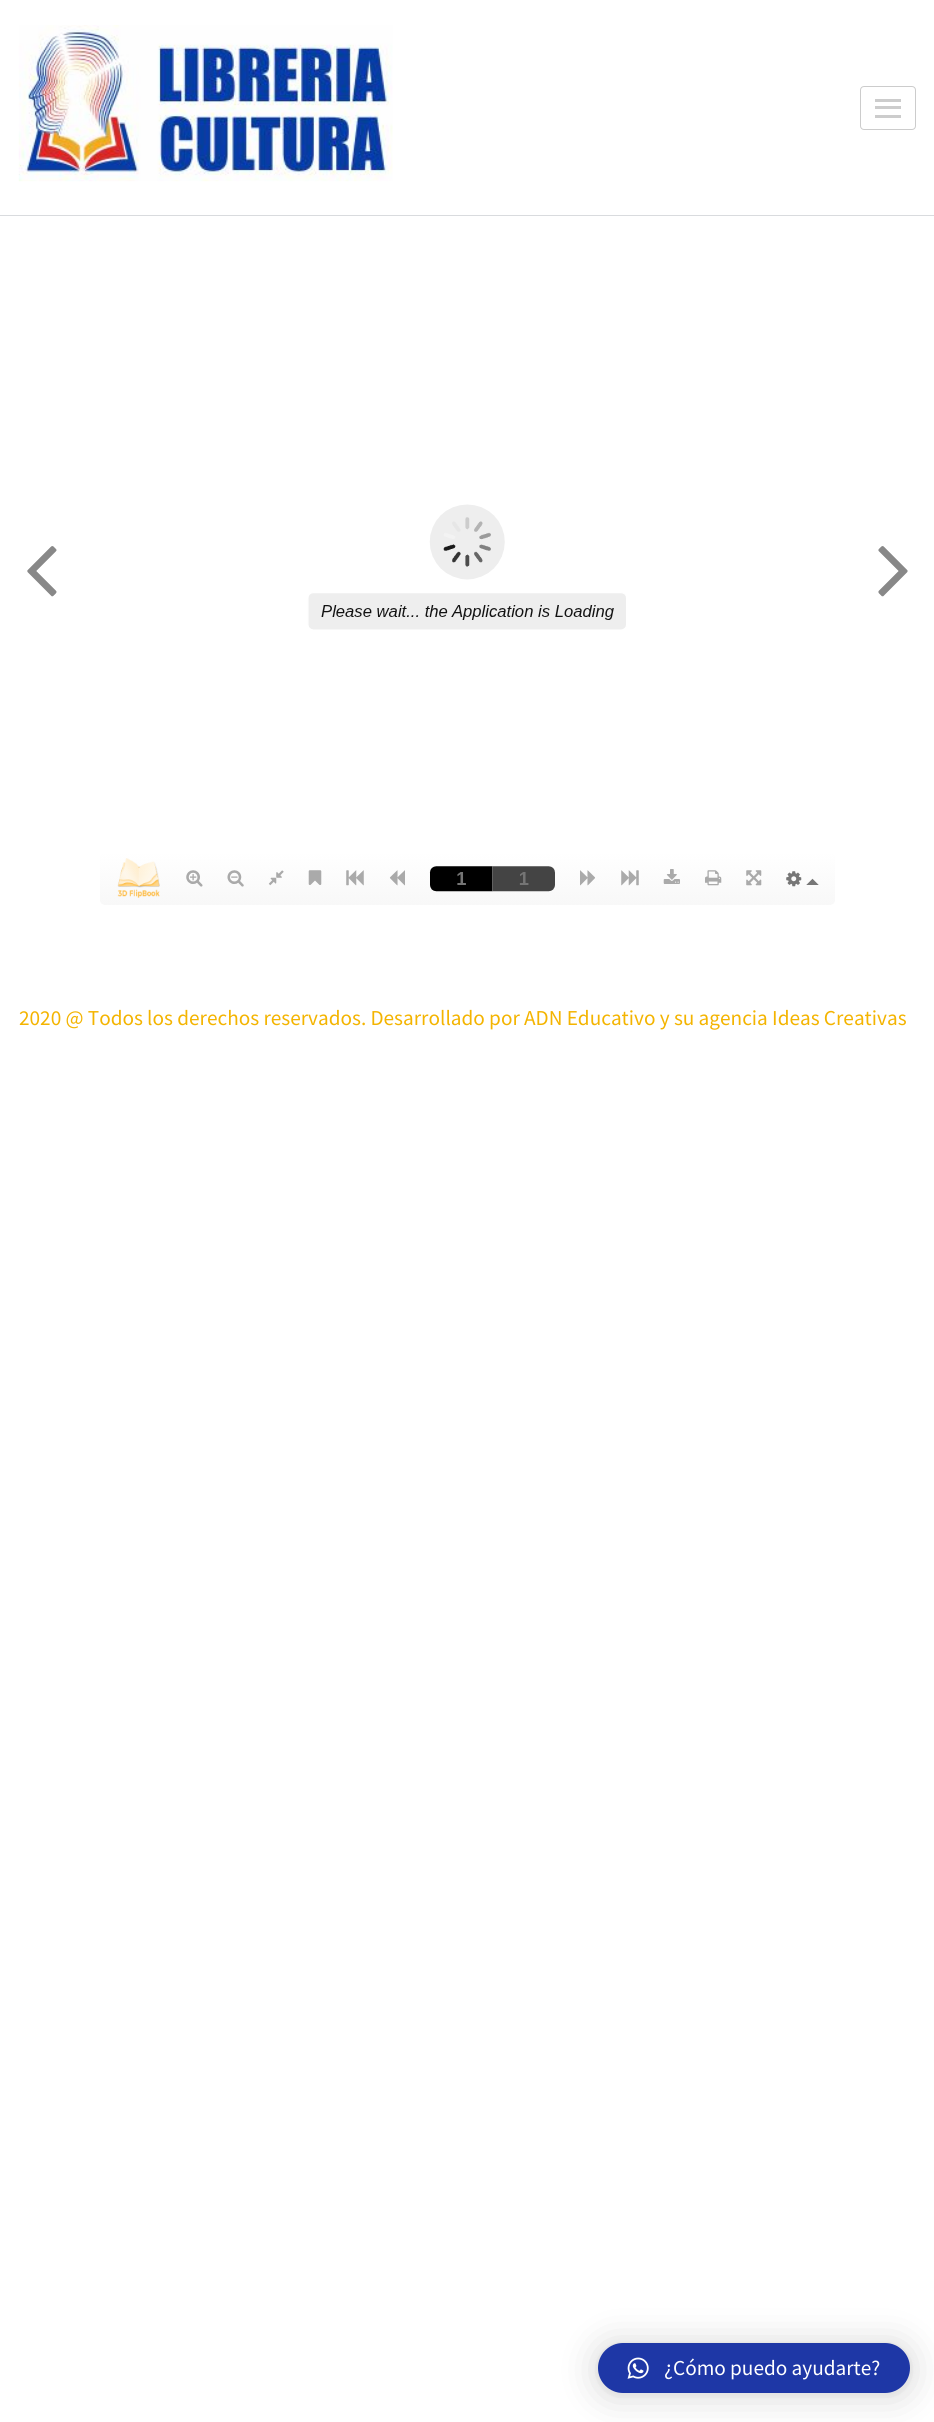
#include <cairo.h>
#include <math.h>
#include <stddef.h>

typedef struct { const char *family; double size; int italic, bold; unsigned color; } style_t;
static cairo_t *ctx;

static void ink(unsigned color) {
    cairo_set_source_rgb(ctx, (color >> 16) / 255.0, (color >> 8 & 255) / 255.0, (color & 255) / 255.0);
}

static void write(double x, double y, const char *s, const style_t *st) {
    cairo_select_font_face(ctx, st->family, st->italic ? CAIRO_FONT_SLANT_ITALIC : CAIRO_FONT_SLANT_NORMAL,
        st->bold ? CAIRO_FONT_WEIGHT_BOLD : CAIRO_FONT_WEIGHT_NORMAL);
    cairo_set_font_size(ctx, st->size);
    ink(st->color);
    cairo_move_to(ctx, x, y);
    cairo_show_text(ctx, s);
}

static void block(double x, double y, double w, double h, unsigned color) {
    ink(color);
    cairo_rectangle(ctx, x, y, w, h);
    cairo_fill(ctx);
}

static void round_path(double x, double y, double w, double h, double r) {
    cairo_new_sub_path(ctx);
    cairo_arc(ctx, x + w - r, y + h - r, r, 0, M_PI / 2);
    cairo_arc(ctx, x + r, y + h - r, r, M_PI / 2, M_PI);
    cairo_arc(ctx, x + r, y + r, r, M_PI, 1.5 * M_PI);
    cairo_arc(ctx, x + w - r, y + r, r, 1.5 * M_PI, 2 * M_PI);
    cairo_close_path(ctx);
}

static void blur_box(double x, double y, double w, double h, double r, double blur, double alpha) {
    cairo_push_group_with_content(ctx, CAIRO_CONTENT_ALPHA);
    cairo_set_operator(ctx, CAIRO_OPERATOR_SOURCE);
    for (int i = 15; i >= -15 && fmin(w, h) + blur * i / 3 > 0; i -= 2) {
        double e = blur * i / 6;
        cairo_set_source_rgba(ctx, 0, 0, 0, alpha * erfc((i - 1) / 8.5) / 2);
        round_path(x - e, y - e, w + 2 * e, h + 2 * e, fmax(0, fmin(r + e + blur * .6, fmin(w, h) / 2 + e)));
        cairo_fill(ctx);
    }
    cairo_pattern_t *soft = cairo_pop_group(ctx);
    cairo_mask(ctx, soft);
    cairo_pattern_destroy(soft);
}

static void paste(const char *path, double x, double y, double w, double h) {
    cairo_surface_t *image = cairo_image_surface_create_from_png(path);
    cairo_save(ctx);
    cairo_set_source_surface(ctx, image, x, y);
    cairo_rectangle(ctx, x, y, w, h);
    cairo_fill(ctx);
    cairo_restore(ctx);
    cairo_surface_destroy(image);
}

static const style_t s1 = {"Source Sans Pro", 21.25, 0, 0, 0xf4b400};
static const style_t s2 = {"Source Sans Pro", 21.25, 0, 0, 0xffffff};

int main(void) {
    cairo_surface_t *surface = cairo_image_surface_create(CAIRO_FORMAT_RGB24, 934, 2422);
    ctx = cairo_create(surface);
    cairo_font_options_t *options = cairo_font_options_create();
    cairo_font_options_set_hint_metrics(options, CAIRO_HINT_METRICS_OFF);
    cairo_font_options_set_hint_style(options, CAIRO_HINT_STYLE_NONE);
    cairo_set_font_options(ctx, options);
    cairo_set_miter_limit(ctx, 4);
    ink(0xffffff);
    cairo_paint(ctx);
    paste("pic1.png", 18, 25, 375, 157);
    round_path(860.5, 86.5, 55, 43, 3.5);
    ink(0xcccccc);
    cairo_set_line_width(ctx, 1);
    cairo_stroke(ctx);
    block(875, 99, 26, 3, 0xcccccc);
    block(875, 106, 26, 3, 0xcccccc);
    block(875, 115, 26, 3, 0xcccccc);
    block(0, 215, 934, 1, 0xd9dbde);
    paste("pic2.png", 27, 504, 881, 401);
    write(19, 1025, "2020 @ Todos los derechos reservados. Desarrollado por ADN Educativo y su agencia Ideas Creativas", &s1);
    ink(0x000000);
    blur_box(598, 2345, 312, 50, 25, 20, 0.16);
    blur_box(598, 2344, 312, 50, 25, 4, 0.06);
    ink(0x1e37a6);
    round_path(598, 2343, 312, 50, 25);
    cairo_fill(ctx);
    paste("pic3.png", 627, 2357, 22, 22);
    write(664, 2375, "¿Cómo puedo ayudarte?", &s2);
    cairo_surface_write_to_png(surface, "screenshot.png");
    cairo_font_options_destroy(options);
    cairo_destroy(ctx);
    cairo_surface_destroy(surface);
    return 0;
}
